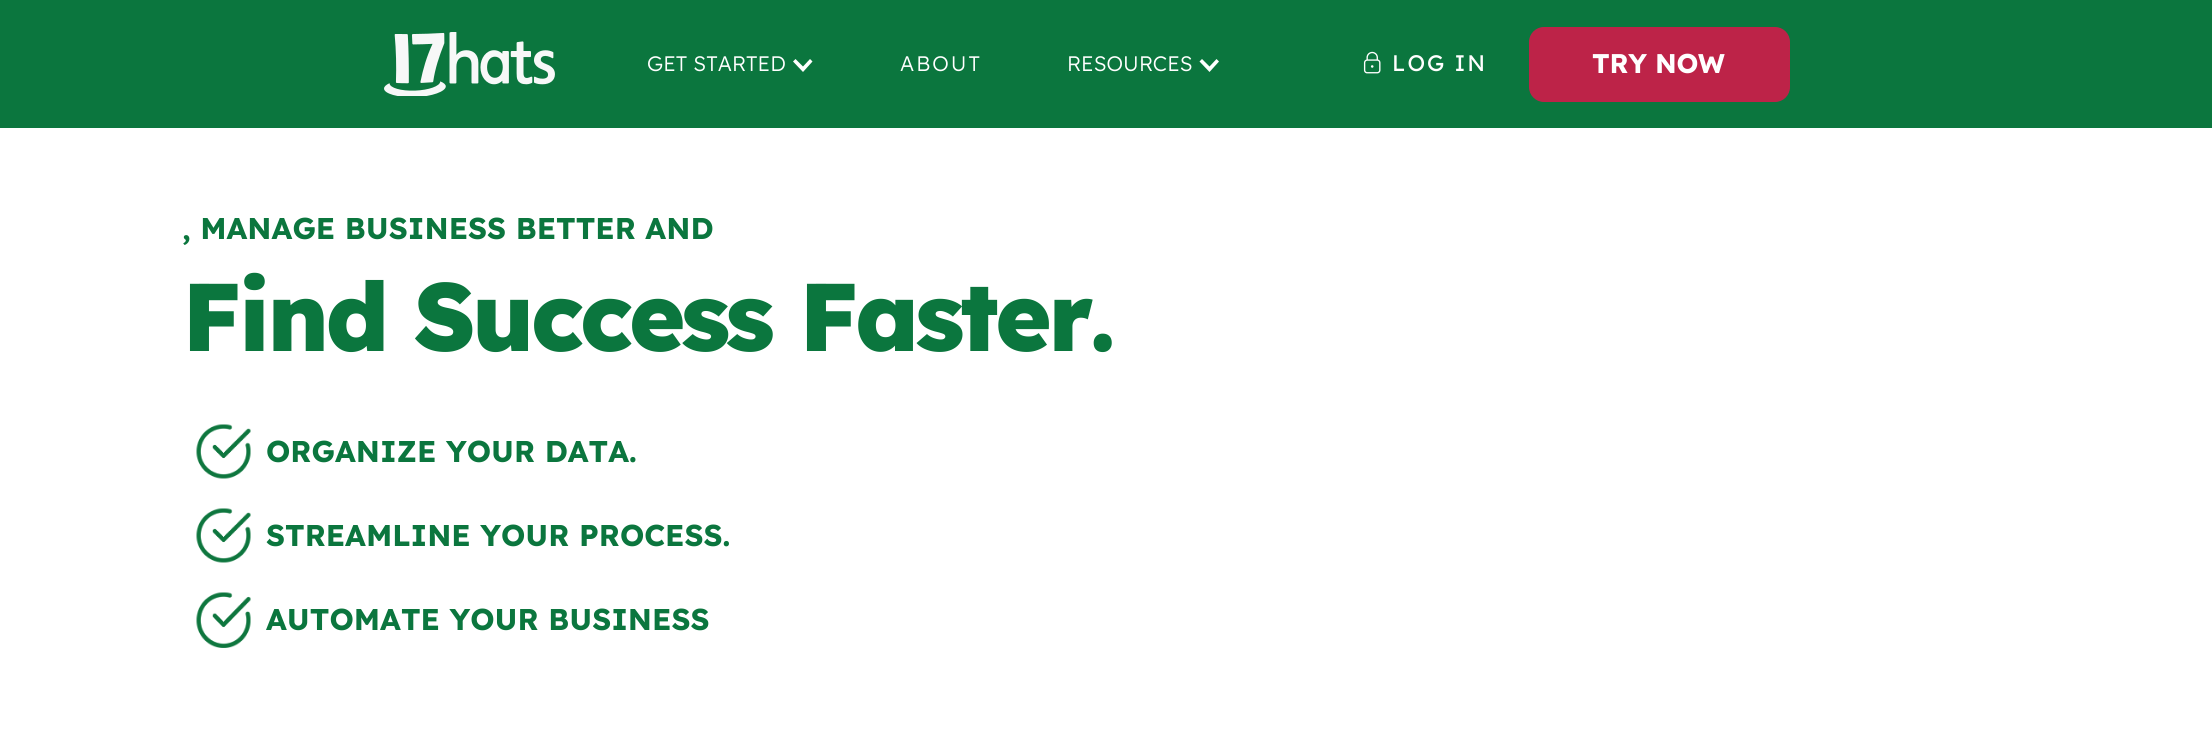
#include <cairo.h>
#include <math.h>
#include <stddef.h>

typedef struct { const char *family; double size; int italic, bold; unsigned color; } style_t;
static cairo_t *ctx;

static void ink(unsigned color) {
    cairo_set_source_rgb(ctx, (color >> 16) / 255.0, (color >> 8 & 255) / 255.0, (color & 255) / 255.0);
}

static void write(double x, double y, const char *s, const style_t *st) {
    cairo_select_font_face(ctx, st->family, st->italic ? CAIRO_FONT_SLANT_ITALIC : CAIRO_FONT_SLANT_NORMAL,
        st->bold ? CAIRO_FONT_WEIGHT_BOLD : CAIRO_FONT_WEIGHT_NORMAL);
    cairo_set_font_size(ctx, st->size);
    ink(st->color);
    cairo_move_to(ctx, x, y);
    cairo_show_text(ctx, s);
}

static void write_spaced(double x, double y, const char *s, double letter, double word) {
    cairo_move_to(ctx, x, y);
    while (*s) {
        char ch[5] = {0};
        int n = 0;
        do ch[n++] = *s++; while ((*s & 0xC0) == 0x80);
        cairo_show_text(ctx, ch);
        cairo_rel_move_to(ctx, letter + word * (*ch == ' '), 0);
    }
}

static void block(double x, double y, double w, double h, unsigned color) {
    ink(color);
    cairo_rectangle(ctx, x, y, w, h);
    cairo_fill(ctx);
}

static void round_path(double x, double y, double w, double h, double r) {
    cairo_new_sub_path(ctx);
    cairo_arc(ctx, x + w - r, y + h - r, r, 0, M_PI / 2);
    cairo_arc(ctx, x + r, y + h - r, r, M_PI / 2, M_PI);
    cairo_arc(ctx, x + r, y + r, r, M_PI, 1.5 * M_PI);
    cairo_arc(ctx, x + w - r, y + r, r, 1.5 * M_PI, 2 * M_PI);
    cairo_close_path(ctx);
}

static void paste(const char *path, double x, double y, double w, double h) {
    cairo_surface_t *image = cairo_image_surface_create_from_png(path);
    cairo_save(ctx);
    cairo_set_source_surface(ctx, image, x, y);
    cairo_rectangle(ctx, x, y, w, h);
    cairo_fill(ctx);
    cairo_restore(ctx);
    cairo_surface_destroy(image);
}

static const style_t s1 = {"Lexend", 30, 0, 1, 0x0b763e};

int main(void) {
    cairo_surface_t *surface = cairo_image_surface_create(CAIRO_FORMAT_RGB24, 2212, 736);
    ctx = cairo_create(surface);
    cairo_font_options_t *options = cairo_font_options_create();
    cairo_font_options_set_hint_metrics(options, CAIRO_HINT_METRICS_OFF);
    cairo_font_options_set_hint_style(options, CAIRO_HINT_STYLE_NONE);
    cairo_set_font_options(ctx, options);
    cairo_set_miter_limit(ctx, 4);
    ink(0xffffff);
    cairo_paint(ctx);
    block(0, 0, 2212, 128, 0x0b763e);
    paste("pic1.png", 384, 32, 171, 64);
    cairo_select_font_face(ctx, "Lexend Light", CAIRO_FONT_SLANT_NORMAL, CAIRO_FONT_WEIGHT_NORMAL);
    cairo_set_font_size(ctx, 21);
    ink(0xffffff);
    write_spaced(647, 71, "GET STARTED", 0.1, 0);
    cairo_new_path(ctx);
    cairo_move_to(ctx, 810, 59);
    cairo_line_to(ctx, 803, 66.5);
    cairo_line_to(ctx, 795.5, 59);
    cairo_line_to(ctx, 793, 61.5);
    cairo_line_to(ctx, 803, 72);
    cairo_line_to(ctx, 812.5, 61.5);
    cairo_close_path(ctx);
    cairo_fill(ctx);
    write_spaced(900, 71, "ABOUT", 2, 0);
    write_spaced(1067, 71, "RESOURCES", 0.1, 0);
    cairo_new_path(ctx);
    cairo_move_to(ctx, 1216.5, 59);
    cairo_line_to(ctx, 1209.5, 66.5);
    cairo_line_to(ctx, 1202, 59);
    cairo_line_to(ctx, 1199.5, 61.5);
    cairo_line_to(ctx, 1209.5, 72);
    cairo_line_to(ctx, 1219, 61.5);
    cairo_close_path(ctx);
    cairo_fill(ctx);
    paste("pic2.png", 1363, 51, 18, 23);
    cairo_select_font_face(ctx, "Lexend", CAIRO_FONT_SLANT_NORMAL, CAIRO_FONT_WEIGHT_NORMAL);
    cairo_set_font_size(ctx, 22.5);
    write_spaced(1392, 71, "LOG IN", 2, 0);
    ink(0xbd2348);
    round_path(1529, 27, 261, 75, 15);
    cairo_fill(ctx);
    cairo_select_font_face(ctx, "Lexend", CAIRO_FONT_SLANT_NORMAL, CAIRO_FONT_WEIGHT_BOLD);
    cairo_set_font_size(ctx, 27);
    ink(0xffffff);
    write_spaced(1592, 73, "TRY NOW", -0.25, 0);
    write(182, 239, ", MANAGE BUSINESS BETTER AND", &s1);
    cairo_select_font_face(ctx, "Lexend ExtraBold", CAIRO_FONT_SLANT_NORMAL, CAIRO_FONT_WEIGHT_NORMAL);
    cairo_set_font_size(ctx, 96);
    write_spaced(182, 351, "Find Success Faster.", -3.8, 0);
    paste("pic3.png", 196, 424, 55, 55);
    write(266, 462, "ORGANIZE YOUR DATA.", &s1);
    paste("pic4.png", 196, 508, 55, 55);
    write(266, 546, "STREAMLINE YOUR PROCESS.", &s1);
    paste("pic5.png", 196, 592, 55, 56);
    write(266, 630, "AUTOMATE YOUR BUSINESS", &s1);
    cairo_surface_write_to_png(surface, "screenshot.png");
    cairo_font_options_destroy(options);
    cairo_destroy(ctx);
    cairo_surface_destroy(surface);
    return 0;
}
